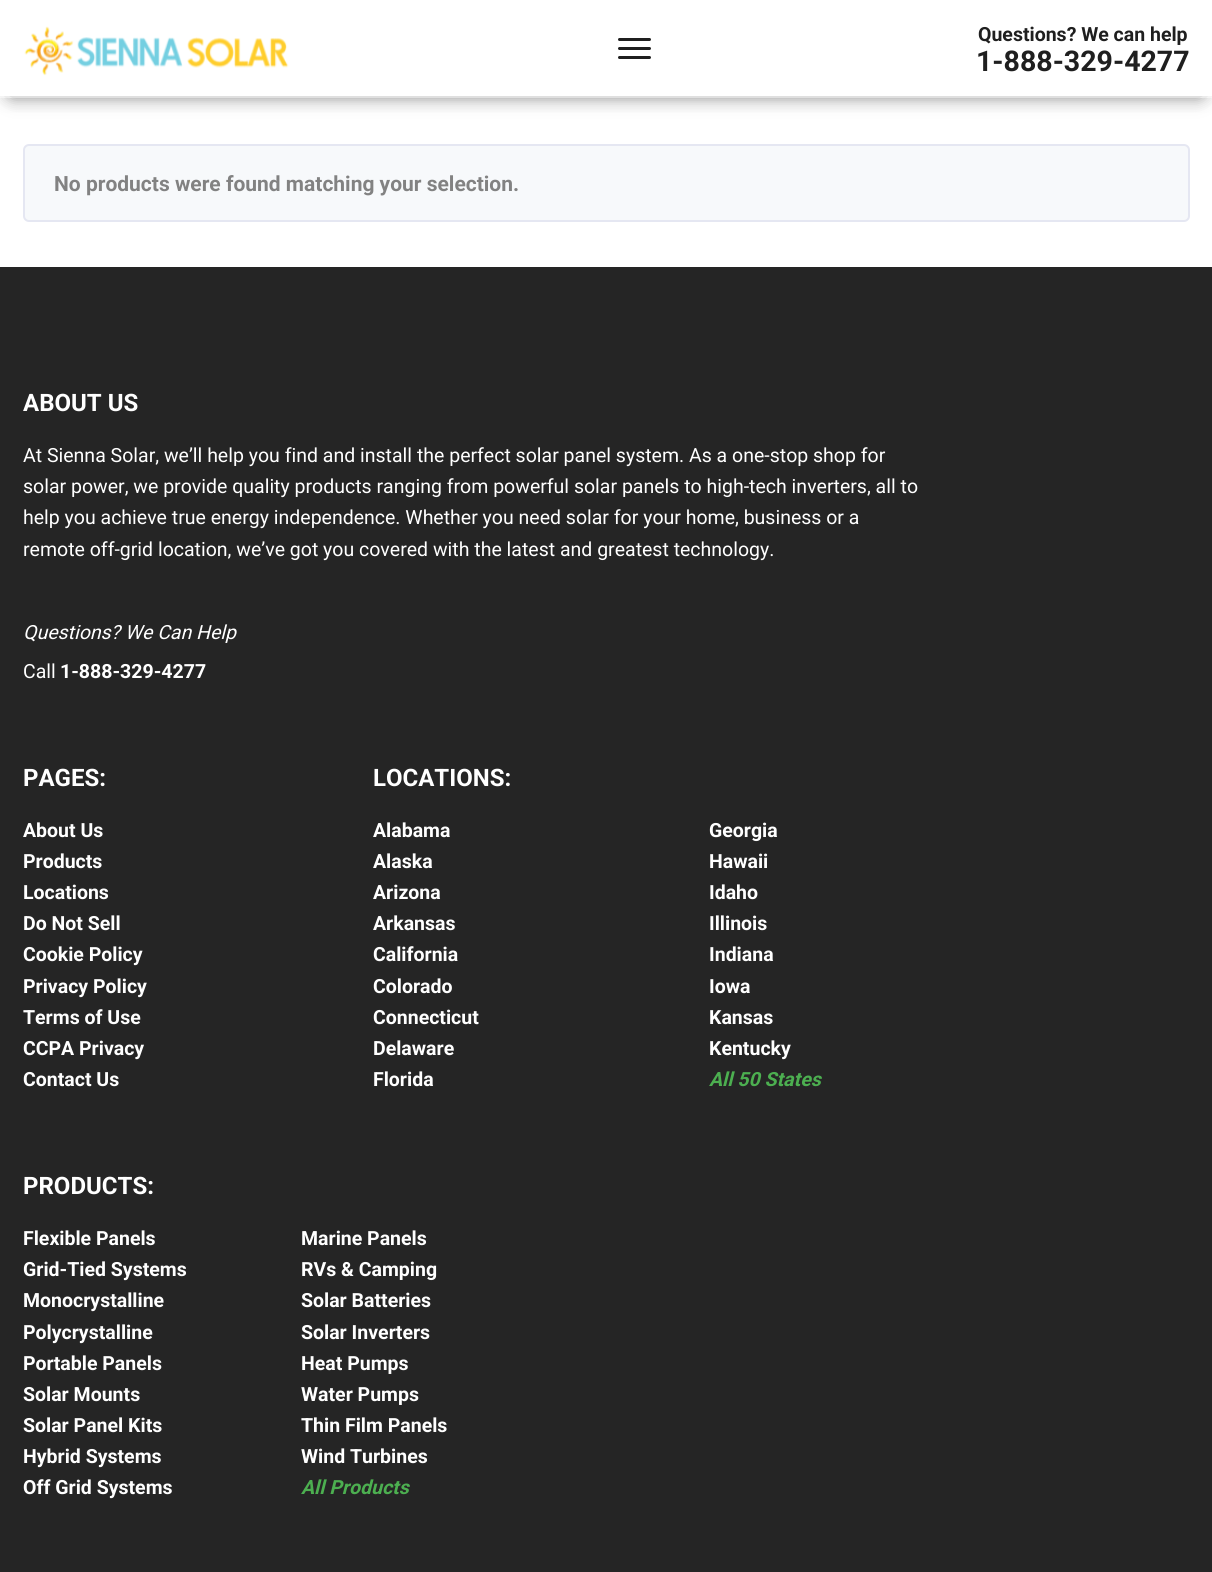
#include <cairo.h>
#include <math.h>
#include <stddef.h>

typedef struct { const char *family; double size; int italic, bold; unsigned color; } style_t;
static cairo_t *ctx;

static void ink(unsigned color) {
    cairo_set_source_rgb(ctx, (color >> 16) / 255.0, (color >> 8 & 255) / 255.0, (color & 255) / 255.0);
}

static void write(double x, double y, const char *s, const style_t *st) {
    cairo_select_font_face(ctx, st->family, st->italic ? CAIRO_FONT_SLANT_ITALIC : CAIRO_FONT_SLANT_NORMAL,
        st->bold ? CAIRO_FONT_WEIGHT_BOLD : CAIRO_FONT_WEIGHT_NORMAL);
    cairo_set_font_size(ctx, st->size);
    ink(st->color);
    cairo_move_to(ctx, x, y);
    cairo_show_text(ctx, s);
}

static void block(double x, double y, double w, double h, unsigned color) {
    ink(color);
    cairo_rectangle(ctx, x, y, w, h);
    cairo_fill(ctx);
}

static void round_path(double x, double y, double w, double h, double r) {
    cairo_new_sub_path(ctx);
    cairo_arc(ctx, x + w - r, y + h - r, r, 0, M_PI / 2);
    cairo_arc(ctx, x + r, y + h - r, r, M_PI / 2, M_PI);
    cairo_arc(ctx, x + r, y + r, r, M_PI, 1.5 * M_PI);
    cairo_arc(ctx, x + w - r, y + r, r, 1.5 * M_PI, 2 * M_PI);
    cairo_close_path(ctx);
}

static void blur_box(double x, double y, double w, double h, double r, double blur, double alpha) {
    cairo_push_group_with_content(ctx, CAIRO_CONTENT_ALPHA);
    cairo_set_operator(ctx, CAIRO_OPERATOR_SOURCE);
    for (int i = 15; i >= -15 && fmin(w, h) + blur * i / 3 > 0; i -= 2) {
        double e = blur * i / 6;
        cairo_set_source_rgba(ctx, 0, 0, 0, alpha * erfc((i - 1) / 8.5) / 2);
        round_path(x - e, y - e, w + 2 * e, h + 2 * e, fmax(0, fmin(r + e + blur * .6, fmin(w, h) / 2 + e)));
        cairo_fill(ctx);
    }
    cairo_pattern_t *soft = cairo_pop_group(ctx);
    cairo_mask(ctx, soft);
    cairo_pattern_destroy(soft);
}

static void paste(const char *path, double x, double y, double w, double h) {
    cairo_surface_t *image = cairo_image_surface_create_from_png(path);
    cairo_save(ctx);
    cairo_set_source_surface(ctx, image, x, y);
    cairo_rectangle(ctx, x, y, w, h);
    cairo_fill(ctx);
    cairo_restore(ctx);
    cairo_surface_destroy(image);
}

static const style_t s1 = {"Roboto", 19.5, 0, 1, 0x1f1f1f};
static const style_t s2 = {"Roboto", 28.5, 0, 1, 0x1f1f1f};
static const style_t s3 = {"Roboto", 21, 0, 1, 0x828282};
static const style_t s4 = {"Roboto", 24, 0, 1, 0xffffff};
static const style_t s5 = {"Roboto", 19.5, 0, 0, 0xffffff};
static const style_t s6 = {"Roboto", 19.5, 1, 0, 0xffffff};
static const style_t s7 = {"Roboto", 19.5, 0, 1, 0xffffff};
static const style_t s8 = {"Roboto", 19.5, 1, 1, 0x4caf50};

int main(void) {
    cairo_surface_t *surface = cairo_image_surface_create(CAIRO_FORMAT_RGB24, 1212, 1572);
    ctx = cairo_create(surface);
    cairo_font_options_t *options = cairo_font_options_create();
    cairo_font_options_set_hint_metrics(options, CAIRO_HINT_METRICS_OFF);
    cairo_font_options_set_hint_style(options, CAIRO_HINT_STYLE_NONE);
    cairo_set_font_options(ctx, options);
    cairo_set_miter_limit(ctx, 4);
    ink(0xffffff);
    cairo_paint(ctx);
    ink(0x808080);
    blur_box(12, 18, 1188, 74, 0, 11, 1);
    block(0, 0, 1212, 98, 0xffffff);
    cairo_save(ctx);
    cairo_rectangle(ctx, 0, 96, 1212, 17);
    cairo_clip(ctx);
    ink(0x808080);
    blur_box(12, 18, 1188, 72, 0, 11, 1);
    cairo_restore(ctx);
    paste("pic1.png", 24, 26, 265, 50);
    ink(0x1f1f1f);
    round_path(618, 38, 33, 3, 1.5);
    cairo_fill(ctx);
    round_path(618, 47, 33, 3, 1.5);
    cairo_fill(ctx);
    round_path(618, 56, 33, 3, 1.5);
    cairo_fill(ctx);
    write(978, 41, "Questions? We can help", &s1);
    write(976, 71, "1-888-329-4277", &s2);
    ink(0xf7f9fb);
    round_path(24, 145, 1165, 76, 5);
    cairo_fill_preserve(ctx);
    ink(0xe5e7f2);
    cairo_stroke(ctx);
    write(54, 191, "No products were found matching your selection.", &s3);
    block(0, 267, 1212, 1305, 0x252525);
    write(23, 411, "ABOUT US", &s4);
    write(23, 462, "At Sienna Solar, we’ll help you find and install the perfect solar panel system. As a one-stop shop for", &s5);
    write(23, 493, "solar power, we provide quality products ranging from powerful solar panels to high-tech inverters, all to", &s5);
    write(23, 524, "help you achieve true energy independence. Whether you need solar for your home, business or a", &s5);
    write(23, 556, "remote off-grid location, we’ve got you covered with the latest and greatest technology.", &s5);
    write(23, 639, "Questions? We Can Help", &s6);
    write(23, 678, "Call", &s5);
    write(60, 678, "1-888-329-4277", &s7);
    write(23, 786, "PAGES:", &s4);
    write(23, 837, "About Us", &s7);
    write(23, 868, "Products", &s7);
    write(23, 899, "Locations", &s7);
    write(23, 930, "Do Not Sell", &s7);
    write(23, 961, "Cookie Policy", &s7);
    write(23, 993, "Privacy Policy", &s7);
    write(23, 1024, "Terms of Use", &s7);
    write(23, 1055, "CCPA Privacy", &s7);
    write(23, 1086, "Contact Us", &s7);
    write(373, 786, "LOCATIONS:", &s4);
    write(373, 837, "Alabama", &s7);
    write(373, 868, "Alaska", &s7);
    write(373, 899, "Arizona", &s7);
    write(373, 930, "Arkansas", &s7);
    write(373, 961, "California", &s7);
    write(373, 993, "Colorado", &s7);
    write(373, 1024, "Connecticut", &s7);
    write(373, 1055, "Delaware", &s7);
    write(373, 1086, "Florida", &s7);
    write(709, 837, "Georgia", &s7);
    write(709, 868, "Hawaii", &s7);
    write(709, 899, "Idaho", &s7);
    write(709, 930, "Illinois", &s7);
    write(709, 961, "Indiana", &s7);
    write(709, 993, "Iowa", &s7);
    write(709, 1024, "Kansas", &s7);
    write(709, 1055, "Kentucky", &s7);
    write(709, 1086, "All 50 States", &s8);
    write(23, 1194, "PRODUCTS:", &s4);
    write(23, 1245, "Flexible Panels", &s7);
    write(23, 1276, "Grid-Tied Systems", &s7);
    write(23, 1307, "Monocrystalline", &s7);
    write(23, 1339, "Polycrystalline", &s7);
    write(23, 1370, "Portable Panels", &s7);
    write(23, 1401, "Solar Mounts", &s7);
    write(23, 1432, "Solar Panel Kits", &s7);
    write(23, 1463, "Hybrid Systems", &s7);
    write(23, 1494, "Off Grid Systems", &s7);
    write(301, 1245, "Marine Panels", &s7);
    write(301, 1276, "RVs & Camping", &s7);
    write(301, 1307, "Solar Batteries", &s7);
    write(301, 1339, "Solar Inverters", &s7);
    write(301, 1370, "Heat Pumps", &s7);
    write(301, 1401, "Water Pumps", &s7);
    write(301, 1432, "Thin Film Panels", &s7);
    write(301, 1463, "Wind Turbines", &s7);
    write(301, 1494, "All Products", &s8);
    cairo_surface_write_to_png(surface, "screenshot.png");
    cairo_font_options_destroy(options);
    cairo_destroy(ctx);
    cairo_surface_destroy(surface);
    return 0;
}
